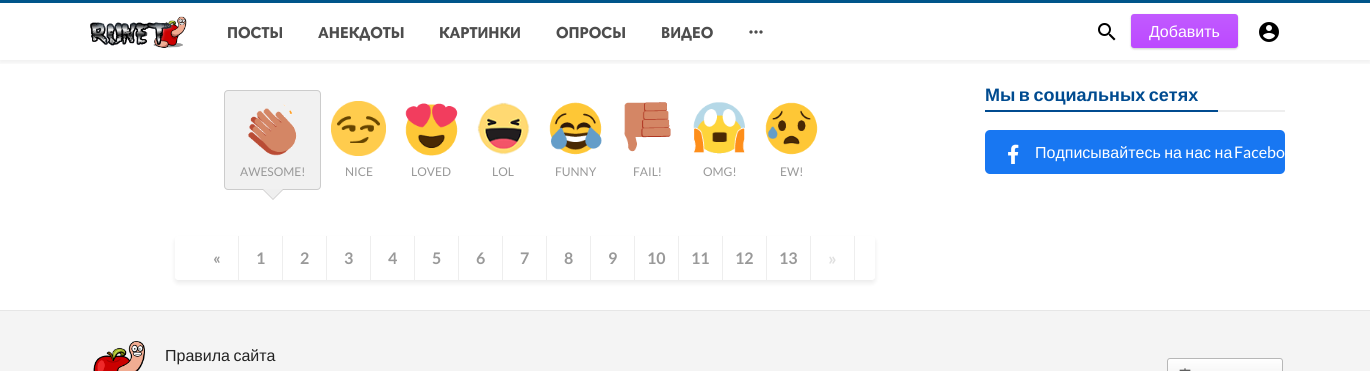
#include <cairo.h>
#include <math.h>
#include <stddef.h>

typedef struct { const char *family; double size; int italic, bold; unsigned color; } style_t;
static cairo_t *ctx;

static void ink(unsigned color) {
    cairo_set_source_rgb(ctx, (color >> 16) / 255.0, (color >> 8 & 255) / 255.0, (color & 255) / 255.0);
}

static void write(double x, double y, const char *s, const style_t *st) {
    cairo_select_font_face(ctx, st->family, st->italic ? CAIRO_FONT_SLANT_ITALIC : CAIRO_FONT_SLANT_NORMAL,
        st->bold ? CAIRO_FONT_WEIGHT_BOLD : CAIRO_FONT_WEIGHT_NORMAL);
    cairo_set_font_size(ctx, st->size);
    ink(st->color);
    cairo_move_to(ctx, x, y);
    cairo_show_text(ctx, s);
}

static void write_spaced(double x, double y, const char *s, double letter, double word) {
    cairo_move_to(ctx, x, y);
    while (*s) {
        char ch[5] = {0};
        int n = 0;
        do ch[n++] = *s++; while ((*s & 0xC0) == 0x80);
        cairo_show_text(ctx, ch);
        cairo_rel_move_to(ctx, letter + word * (*ch == ' '), 0);
    }
}

static void block(double x, double y, double w, double h, unsigned color) {
    ink(color);
    cairo_rectangle(ctx, x, y, w, h);
    cairo_fill(ctx);
}

static void round_path(double x, double y, double w, double h, double r) {
    cairo_new_sub_path(ctx);
    cairo_arc(ctx, x + w - r, y + h - r, r, 0, M_PI / 2);
    cairo_arc(ctx, x + r, y + h - r, r, M_PI / 2, M_PI);
    cairo_arc(ctx, x + r, y + r, r, M_PI, 1.5 * M_PI);
    cairo_arc(ctx, x + w - r, y + r, r, 1.5 * M_PI, 2 * M_PI);
    cairo_close_path(ctx);
}

static void blur_box(double x, double y, double w, double h, double r, double blur, double alpha) {
    cairo_push_group_with_content(ctx, CAIRO_CONTENT_ALPHA);
    cairo_set_operator(ctx, CAIRO_OPERATOR_SOURCE);
    for (int i = 15; i >= -15 && fmin(w, h) + blur * i / 3 > 0; i -= 2) {
        double e = blur * i / 6;
        cairo_set_source_rgba(ctx, 0, 0, 0, alpha * erfc((i - 1) / 8.5) / 2);
        round_path(x - e, y - e, w + 2 * e, h + 2 * e, fmax(0, fmin(r + e + blur * .6, fmin(w, h) / 2 + e)));
        cairo_fill(ctx);
    }
    cairo_pattern_t *soft = cairo_pop_group(ctx);
    cairo_mask(ctx, soft);
    cairo_pattern_destroy(soft);
}

static void paste(const char *path, double x, double y, double w, double h) {
    cairo_surface_t *image = cairo_image_surface_create_from_png(path);
    cairo_save(ctx);
    cairo_set_source_surface(ctx, image, x, y);
    cairo_rectangle(ctx, x, y, w, h);
    cairo_fill(ctx);
    cairo_restore(ctx);
    cairo_surface_destroy(image);
}

static const style_t s1 = {"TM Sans", 16, 0, 1, 0x4d4d4d};
static const style_t s2 = {"Liberation Sans", 16, 0, 0, 0xffffff};
static const style_t s3 = {"Lato", 16, 0, 0, 0xffffff};
static const style_t s4 = {"Lato", 12, 0, 0, 0x999999};
static const style_t s5 = {"Lato", 16, 0, 1, 0x999999};
static const style_t s6 = {"Lato", 18, 0, 1, 0xe0e0e0};

int main(void) {
    cairo_surface_t *surface = cairo_image_surface_create(CAIRO_FORMAT_RGB24, 1370, 371);
    ctx = cairo_create(surface);
    cairo_font_options_t *options = cairo_font_options_create();
    cairo_font_options_set_hint_metrics(options, CAIRO_HINT_METRICS_OFF);
    cairo_font_options_set_hint_style(options, CAIRO_HINT_STYLE_NONE);
    cairo_set_font_options(ctx, options);
    cairo_set_miter_limit(ctx, 4);
    cairo_pattern_t *gradient;
    ink(0xffffff);
    cairo_paint(ctx);
    cairo_save(ctx);
    cairo_rectangle(ctx, 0, 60, 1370, 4);
    cairo_clip(ctx);
    ink(0x000000);
    blur_box(0, 1, 1370, 60, 0, 4, 0.1);
    cairo_restore(ctx);
    block(0, 0, 1370, 3, 0x00558a);
    paste("pic1.png", 90, 16, 97, 32);
    write(227, 38, "ПОСТЫ", &s1);
    write(318, 38, "АНЕКДОТЫ", &s1);
    write(439, 38, "КАРТИНКИ", &s1);
    write(556, 38, "ОПРОСЫ", &s1);
    write(661, 38, "ВИДЕО", &s1);
    paste("pic2.png", 749, 30, 14, 4);
    paste("pic3.png", 1098, 23, 18, 18);
    ink(0x000000);
    blur_box(1131, 15, 107, 34, 3, 1, 0.2);
    gradient = cairo_pattern_create_linear(1185, 14, 1185, 48);
    cairo_pattern_add_color_stop_rgba(gradient, 0, 0.757, 0.353, 1, 1);
    cairo_pattern_add_color_stop_rgba(gradient, 1, 0.737, 0.286, 1, 1);
    cairo_set_source(ctx, gradient);
    cairo_pattern_destroy(gradient);
    round_path(1131, 14, 107, 34, 3);
    cairo_fill(ctx);
    write(1149, 37, "Добавить", &s2);
    paste("pic4.png", 1259, 22, 20, 20);
    block(1218, 110, 67, 2, 0xeeeeee);
    block(985, 110, 233, 2, 0x004b90);
    cairo_select_font_face(ctx, "Liberation Sans", CAIRO_FONT_SLANT_NORMAL, CAIRO_FONT_WEIGHT_BOLD);
    cairo_set_font_size(ctx, 18);
    write_spaced(985, 101, "Мы в социальных сетях", 0, -1.5);
    ink(0x1877f2);
    round_path(985, 130, 300, 44, 5);
    cairo_fill(ctx);
    paste("pic5.png", 1008, 144, 11, 20);
    cairo_select_font_face(ctx, "Liberation Sans", CAIRO_FONT_SLANT_NORMAL, CAIRO_FONT_WEIGHT_NORMAL);
    cairo_set_font_size(ctx, 16);
    ink(0xffffff);
    write_spaced(1035, 158, "Подписывайтесь на нас на", 0, -1);
    write(1234, 158, "Facebo", &s3);
    ink(0xf1f1f1);
    round_path(224.5, 90.5, 96, 99, 3.5);
    cairo_fill_preserve(ctx);
    ink(0xcccccc);
    cairo_set_line_width(ctx, 1);
    cairo_stroke(ctx);
    paste("pic6.png", 248, 104, 49, 52);
    write(240, 176, "AWESOME!", &s4);
    ink(0xcac9c9);
    cairo_new_path(ctx);
    cairo_move_to(ctx, 262, 189);
    cairo_line_to(ctx, 284, 189);
    cairo_line_to(ctx, 273, 200);
    cairo_close_path(ctx);
    cairo_fill(ctx);
    ink(0xefefef);
    cairo_new_path(ctx);
    cairo_move_to(ctx, 263, 189);
    cairo_line_to(ctx, 283, 189);
    cairo_line_to(ctx, 273, 199);
    cairo_close_path(ctx);
    cairo_fill(ctx);
    paste("pic7.png", 331, 101, 55, 55);
    write(345, 176, "NICE", &s4);
    paste("pic8.png", 405, 103, 53, 53);
    write(411, 176, "LOVED", &s4);
    paste("pic9.png", 477, 102, 53, 53);
    write(492, 176, "LOL", &s4);
    paste("pic10.png", 549, 102, 53, 53);
    write(555, 176, "FUNNY", &s4);
    paste("pic11.png", 624, 102, 47, 50);
    write(633, 176, "FAIL!", &s4);
    paste("pic12.png", 693, 102, 52, 52);
    write(703, 176, "OMG!", &s4);
    paste("pic13.png", 765, 102, 53, 53);
    write(780, 176, "EW!", &s4);
    cairo_save(ctx);
    cairo_set_fill_rule(ctx, CAIRO_FILL_RULE_EVEN_ODD);
    cairo_new_path(ctx);
    cairo_move_to(ctx, 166, 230);
    cairo_line_to(ctx, 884, 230);
    cairo_line_to(ctx, 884, 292);
    cairo_line_to(ctx, 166, 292);
    cairo_close_path(ctx);
    cairo_move_to(ctx, 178, 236);
    cairo_line_to(ctx, 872, 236);
    cairo_curve_to(ctx, 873.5, 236, 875, 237.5, 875, 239);
    cairo_line_to(ctx, 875, 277);
    cairo_curve_to(ctx, 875, 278.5, 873.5, 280, 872, 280);
    cairo_line_to(ctx, 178, 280);
    cairo_curve_to(ctx, 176.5, 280, 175, 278.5, 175, 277);
    cairo_line_to(ctx, 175, 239);
    cairo_curve_to(ctx, 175, 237.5, 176.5, 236, 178, 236);
    cairo_close_path(ctx);
    cairo_clip(ctx);
    ink(0x000000);
    blur_box(175, 239, 700, 44, 3, 2.5, 0.08);
    cairo_restore(ctx);
    block(238, 236, 1, 44, 0xeeeeee);
    write(213, 264, "«", &s5);
    block(282, 236, 1, 44, 0xeeeeee);
    write(256, 264, "1", &s5);
    block(326, 236, 1, 44, 0xeeeeee);
    write(300, 264, "2", &s5);
    block(370, 236, 1, 44, 0xeeeeee);
    write(344, 264, "3", &s5);
    block(414, 236, 1, 44, 0xeeeeee);
    write(388, 264, "4", &s5);
    block(458, 236, 1, 44, 0xeeeeee);
    write(432, 264, "5", &s5);
    block(502, 236, 1, 44, 0xeeeeee);
    write(476, 264, "6", &s5);
    block(546, 236, 1, 44, 0xeeeeee);
    write(520, 264, "7", &s5);
    block(590, 236, 1, 44, 0xeeeeee);
    write(564, 264, "8", &s5);
    block(634, 236, 1, 44, 0xeeeeee);
    write(608, 264, "9", &s5);
    block(678, 236, 1, 44, 0xeeeeee);
    write(647, 264, "10", &s5);
    block(722, 236, 1, 44, 0xeeeeee);
    write(691, 264, "11", &s5);
    block(766, 236, 1, 44, 0xeeeeee);
    write(735, 264, "12", &s5);
    block(810, 236, 1, 44, 0xeeeeee);
    write(779, 264, "13", &s5);
    block(854, 236, 1, 44, 0xeeeeee);
    write(828, 265, "»", &s6);
    block(0, 311, 1370, 60, 0xf4f4f4);
    block(0, 310, 1370, 1, 0xe6e6e6);
    paste("pic14.png", 93, 341, 52, 30);
    cairo_select_font_face(ctx, "Liberation Sans", CAIRO_FONT_SLANT_NORMAL, CAIRO_FONT_WEIGHT_NORMAL);
    cairo_set_font_size(ctx, 16);
    ink(0x222222);
    write_spaced(165, 361, "Правила сайта", 0, -1);
    cairo_save(ctx);
    round_path(1167, 358, 116, 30, 3);
    cairo_clip(ctx);
    gradient = cairo_pattern_create_linear(1225, 359, 1225, 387);
    cairo_pattern_add_color_stop_rgba(gradient, 0, 1, 1, 1, 1);
    cairo_pattern_add_color_stop_rgba(gradient, 1, 0.929, 0.929, 0.929, 1);
    cairo_set_source(ctx, gradient);
    cairo_pattern_destroy(gradient);
    cairo_rectangle(ctx, 1167, 359, 116, 12);
    cairo_fill(ctx);
    cairo_restore(ctx);
    round_path(1167.5, 358.5, 115, 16, 2.5);
    ink(0xb7b7b7);
    cairo_stroke(ctx);
    paste("pic15.png", 1179, 368, 12, 3);
    cairo_surface_write_to_png(surface, "screenshot.png");
    cairo_font_options_destroy(options);
    cairo_destroy(ctx);
    cairo_surface_destroy(surface);
    return 0;
}
